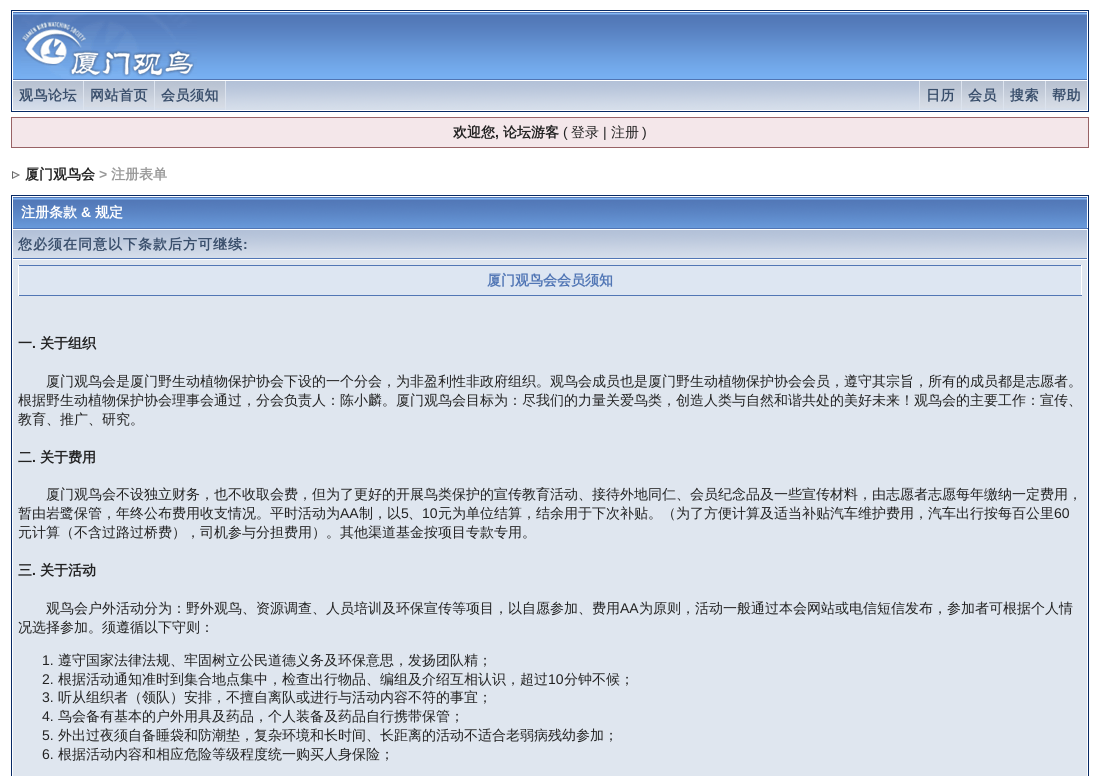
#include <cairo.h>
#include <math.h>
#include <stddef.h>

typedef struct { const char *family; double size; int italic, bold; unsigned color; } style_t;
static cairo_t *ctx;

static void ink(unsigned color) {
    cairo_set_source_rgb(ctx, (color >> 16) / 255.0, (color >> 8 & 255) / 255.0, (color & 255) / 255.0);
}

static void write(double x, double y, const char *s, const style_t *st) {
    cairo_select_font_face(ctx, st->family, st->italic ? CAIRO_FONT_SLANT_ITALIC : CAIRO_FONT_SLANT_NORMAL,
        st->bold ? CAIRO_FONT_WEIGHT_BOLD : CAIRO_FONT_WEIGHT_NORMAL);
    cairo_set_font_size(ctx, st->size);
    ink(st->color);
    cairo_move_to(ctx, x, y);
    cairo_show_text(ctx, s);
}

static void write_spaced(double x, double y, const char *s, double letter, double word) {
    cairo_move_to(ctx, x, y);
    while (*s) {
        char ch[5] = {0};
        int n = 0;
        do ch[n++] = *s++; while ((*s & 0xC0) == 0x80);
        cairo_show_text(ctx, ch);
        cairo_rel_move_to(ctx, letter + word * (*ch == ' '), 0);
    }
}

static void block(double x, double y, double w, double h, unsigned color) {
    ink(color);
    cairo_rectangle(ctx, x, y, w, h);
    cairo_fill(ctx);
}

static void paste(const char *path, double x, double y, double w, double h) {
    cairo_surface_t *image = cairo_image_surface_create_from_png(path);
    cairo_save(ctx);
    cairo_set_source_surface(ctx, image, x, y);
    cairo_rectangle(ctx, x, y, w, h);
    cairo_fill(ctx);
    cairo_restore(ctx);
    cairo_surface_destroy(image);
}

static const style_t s1 = {"WenQuanYi Zen Hei", 14, 0, 1, 0x222222};
static const style_t s2 = {"Liberation Sans", 14, 0, 1, 0x222222};
static const style_t s3 = {"Liberation Sans", 14, 0, 0, 0x222222};
static const style_t s4 = {"WenQuanYi Zen Hei Medium", 14, 0, 0, 0x222222};
static const style_t s5 = {"Liberation Sans", 14, 0, 1, 0x999999};
static const style_t s6 = {"WenQuanYi Zen Hei", 14, 0, 1, 0x999999};
static const style_t s7 = {"WenQuanYi Zen Hei", 14, 0, 1, 0xffffff};
static const style_t s8 = {"Liberation Sans", 14, 0, 1, 0xffffff};
static const style_t s9 = {"WenQuanYi Zen Hei", 14, 0, 1, 0x5176b5};

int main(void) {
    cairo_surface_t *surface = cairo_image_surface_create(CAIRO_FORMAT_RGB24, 1100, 776);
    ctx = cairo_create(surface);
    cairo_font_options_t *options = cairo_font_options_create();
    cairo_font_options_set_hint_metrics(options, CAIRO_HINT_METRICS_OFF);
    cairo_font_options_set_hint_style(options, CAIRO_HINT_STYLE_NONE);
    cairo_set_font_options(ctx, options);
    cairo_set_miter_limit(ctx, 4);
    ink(0xffffff);
    cairo_paint(ctx);
    cairo_rectangle(ctx, 11.5, 10.5, 1077, 101);
    ink(0x072a66);
    cairo_set_line_width(ctx, 1);
    cairo_stroke(ctx);
    paste("pic1.png", 13, 12, 1074, 68);
    paste("pic2.png", 21, 12, 176, 68);
    paste("pic3.png", 13, 81, 1074, 29);
    paste("pic4.png", 13, 81, 70, 18);
    block(83, 81, 1, 29, 0xdce3ee);
    cairo_select_font_face(ctx, "WenQuanYi Zen Hei", CAIRO_FONT_SLANT_NORMAL, CAIRO_FONT_WEIGHT_BOLD);
    cairo_set_font_size(ctx, 14);
    ink(0x3a4f6c);
    write_spaced(19, 100, "观鸟论坛", 0.5, 0);
    paste("pic5.png", 84, 81, 70, 26);
    block(154, 81, 1, 29, 0xdce3ee);
    ink(0x3a4f6c);
    write_spaced(90, 100, "网站首页", 0.5, 0);
    paste("pic6.png", 155, 81, 70, 27);
    block(225, 81, 1, 29, 0xdce3ee);
    ink(0x3a4f6c);
    write_spaced(161, 100, "会员须知", 0.5, 0);
    paste("pic7.png", 920, 81, 41, 27);
    block(919, 81, 1, 29, 0xdce3ee);
    ink(0x3a4f6c);
    write_spaced(926, 100, "日历", 0.5, 0);
    paste("pic7.png", 962, 81, 41, 27);
    block(961, 81, 1, 29, 0xdce3ee);
    ink(0x3a4f6c);
    write_spaced(968, 100, "会员", 0.5, 0);
    paste("pic7.png", 1004, 81, 41, 27);
    block(1003, 81, 1, 29, 0xdce3ee);
    ink(0x3a4f6c);
    write_spaced(1010, 100, "搜索", 0.5, 0);
    paste("pic7.png", 1046, 81, 41, 27);
    block(1045, 81, 1, 29, 0xdce3ee);
    ink(0x3a4f6c);
    write_spaced(1052, 100, "帮助", 0.5, 0);
    ink(0xf4e7ea);
    cairo_rectangle(ctx, 11.5, 117.5, 1077, 30);
    cairo_fill_preserve(ctx);
    ink(0x986265);
    cairo_stroke(ctx);
    write(453, 137, "欢迎您", &s1);
    write(495, 137, ",", &s2);
    write(503, 137, "论坛游客", &s1);
    write(563, 137, "(", &s3);
    write(571, 137, "登录", &s4);
    write(603, 137, "|", &s3);
    write(611, 137, "注册", &s4);
    write(642, 137, ")", &s3);
    paste("pic8.png", 12, 171, 8, 8);
    write(25, 179, "厦门观鸟会", &s1);
    write(99, 179, ">", &s5);
    write(111, 179, "注册表单", &s6);
    cairo_rectangle(ctx, 11.5, 195.5, 1077, 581);
    ink(0x072a66);
    cairo_stroke(ctx);
    paste("pic9.png", 13, 197, 1074, 31);
    block(12, 228, 1076, 1, 0x5176b5);
    block(12, 228, 1, 1, 0xffffff);
    write(21, 217, "注册条款", &s7);
    write(81, 217, "&", &s8);
    write(95, 217, "规定", &s7);
    paste("pic10.png", 13, 230, 1074, 28);
    block(13, 258, 1074, 1, 0x5176b5);
    ink(0x3a4f6c);
    write_spaced(18, 249, "您必须在同意以下条款后方可继续", 1, 0);
    cairo_select_font_face(ctx, "Liberation Sans", CAIRO_FONT_SLANT_NORMAL, CAIRO_FONT_WEIGHT_BOLD);
    write_spaced(243, 249, ":", 1, 0);
    block(13, 260, 1074, 516, 0xdfe6ef);
    block(19, 266, 1062, 29, 0xdde6f2);
    block(18, 265, 1064, 1, 0x5176b5);
    block(1081, 265, 1, 31, 0xffffff);
    block(18, 295, 1064, 1, 0x5176b5);
    block(18, 265, 1, 31, 0xffffff);
    write(487, 285, "厦门观鸟会会员须知", &s9);
    write(18, 348, "一", &s1);
    write(40, 348, "关于组织", &s1);
    write(32, 348, ".", &s2);
    write(46, 386, "厦门观鸟会是厦门野生动植物保护协会下设的一个分会，为非盈利性非政府组织。观鸟会成员也是厦门野生动植物保护协会会员，遵守其宗旨，所有的成员都是志愿者。", &s4);
    write(18, 405, "根据野生动植物保护协会理事会通过，分会负责人：陈小麟。厦门观鸟会目标为：尽我们的力量关爱鸟类，创造人类与自然和谐共处的美好未来！观鸟会的主要工作：宣传、", &s4);
    write(18, 424, "教育、推广、研究。", &s4);
    write(18, 462, "二", &s1);
    write(32, 462, ".", &s2);
    write(40, 462, "关于费用", &s1);
    write(46, 499, "厦门观鸟会不设独立财务，也不收取会费，但为了更好的开展鸟类保护的宣传教育活动、接待外地同仁、会员纪念品及一些宣传材料，由志愿者志愿每年缴纳一定费用，", &s4);
    write(18, 518, "暂由岩鹭保管，年终公布费用收支情况。平时活动为", &s4);
    write(340, 518, "AA", &s3);
    write(359, 518, "制，以", &s4);
    write(401, 518, "5", &s3);
    write(408, 518, "、", &s4);
    write(422, 518, "10", &s3);
    write(438, 518, "元为单位结算，结余用于下次补贴。（为了方便计算及适当补贴汽车维护费用，汽车出行按每百公里", &s4);
    write(1054, 518, "60", &s3);
    write(18, 537, "元计算（不含过路过桥费），司机参与分担费用）。其他渠道基金按项目专款专用。", &s4);
    write(18, 575, "三", &s1);
    write(32, 575, ".", &s2);
    write(40, 575, "关于活动", &s1);
    write(46, 613, "观鸟会户外活动分为：野外观鸟、资源调查、人员培训及环保宣传等项目，以自愿参加、费用", &s4);
    write(620, 613, "AA", &s3);
    write(639, 613, "为原则，活动一般通过本会网站或电信短信发布，参加者可根据个人情", &s4);
    write(18, 632, "况选择参加。须遵循以下守则：", &s4);
    write(42, 665, "1.", &s3);
    write(58, 665, "遵守国家法律法规、牢固树立公民道德义务及环保意思，发扬团队精；", &s4);
    write(42, 684, "2.", &s3);
    write(58, 684, "根据活动通知准时到集合地点集中，检查出行物品、编组及介绍互相认识，超过", &s4);
    write(548, 684, "10", &s3);
    write(564, 684, "分钟不候；", &s4);
    write(42, 702, "3.", &s3);
    write(58, 702, "听从组织者（领队）安排，不擅自离队或进行与活动内容不符的事宜；", &s4);
    write(42, 721, "4.", &s3);
    write(58, 721, "鸟会备有基本的户外用具及药品，个人装备及药品自行携带保管；", &s4);
    write(42, 740, "5.", &s3);
    write(58, 740, "外出过夜须自备睡袋和防潮垫，复杂环境和长时间、长距离的活动不适合老弱病残幼参加；", &s4);
    write(42, 759, "6.", &s3);
    write(58, 759, "根据活动内容和相应危险等级程度统一购买人身保险；", &s4);
    cairo_surface_write_to_png(surface, "screenshot.png");
    cairo_font_options_destroy(options);
    cairo_destroy(ctx);
    cairo_surface_destroy(surface);
    return 0;
}
